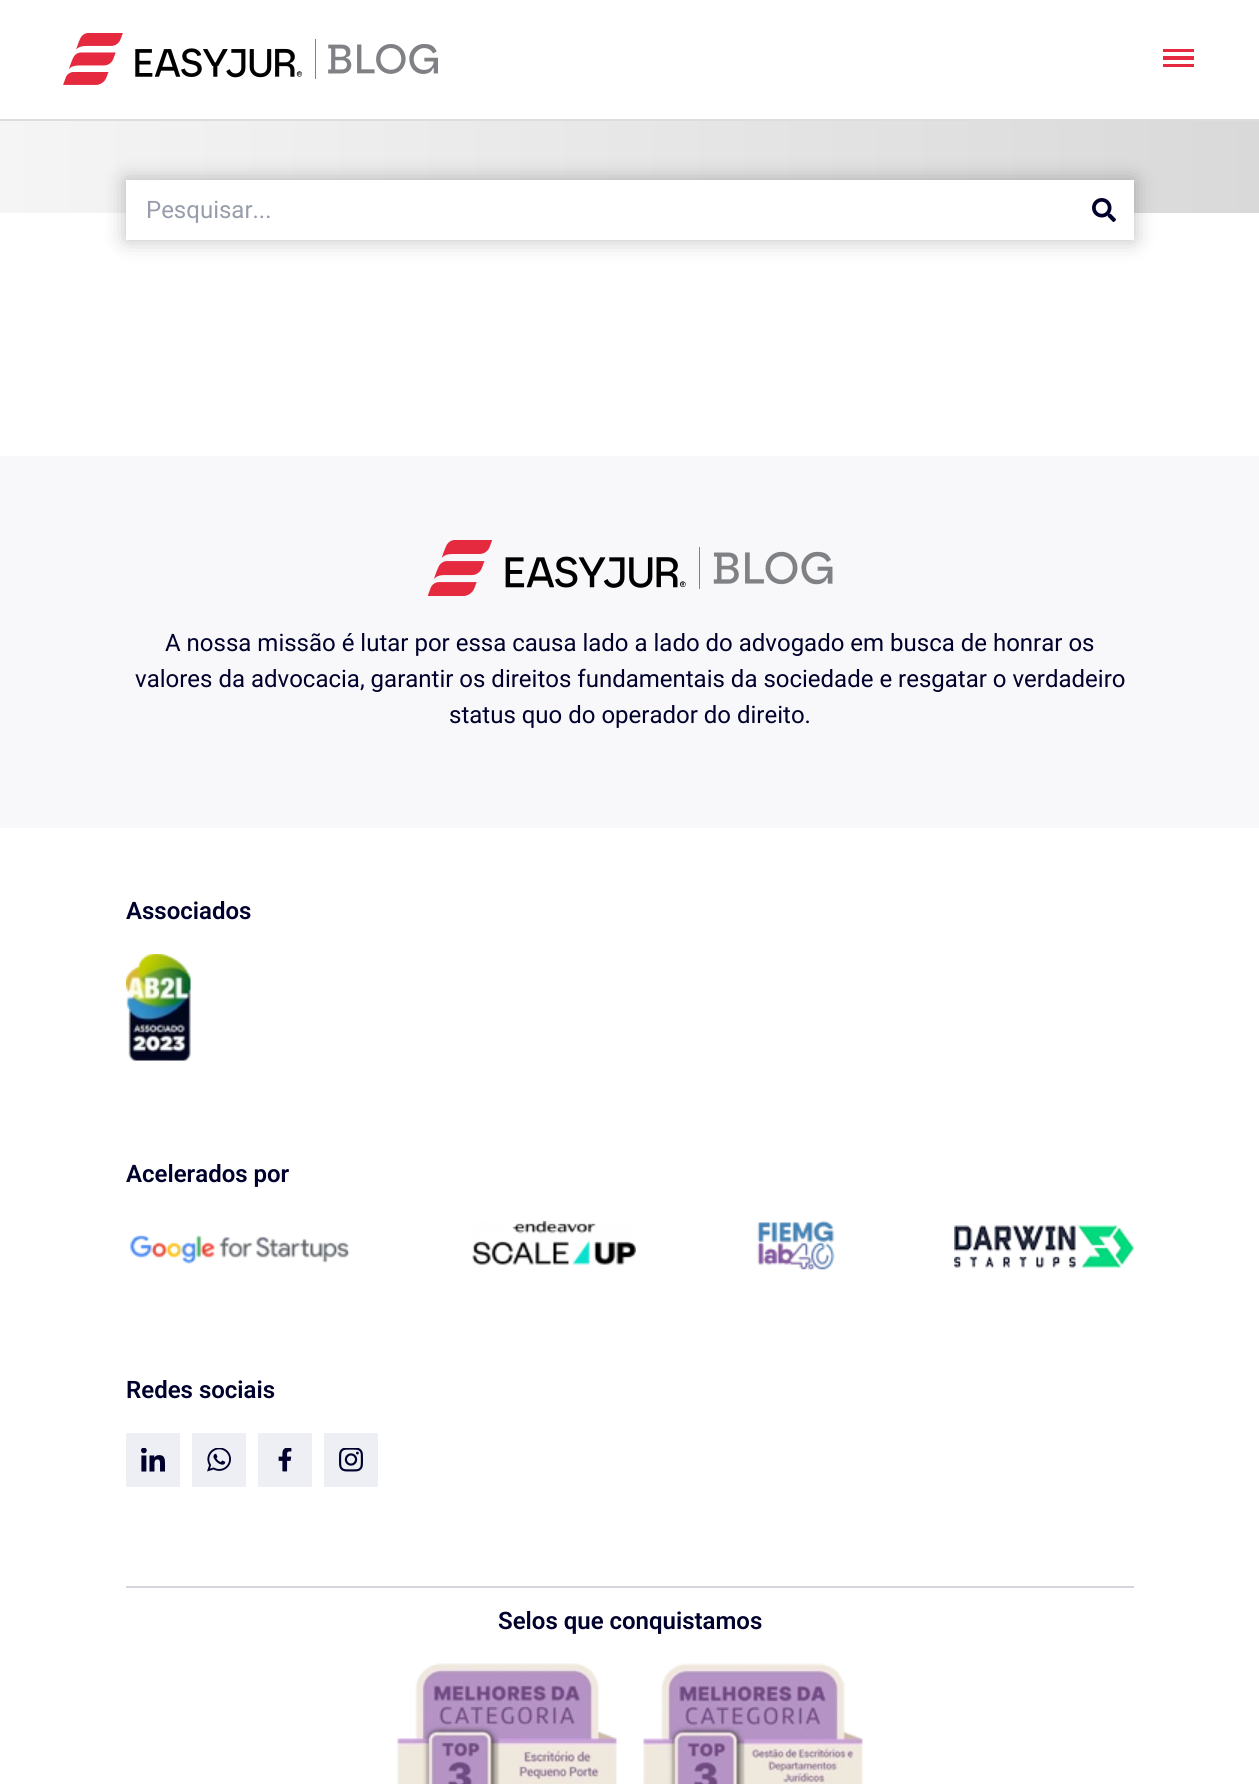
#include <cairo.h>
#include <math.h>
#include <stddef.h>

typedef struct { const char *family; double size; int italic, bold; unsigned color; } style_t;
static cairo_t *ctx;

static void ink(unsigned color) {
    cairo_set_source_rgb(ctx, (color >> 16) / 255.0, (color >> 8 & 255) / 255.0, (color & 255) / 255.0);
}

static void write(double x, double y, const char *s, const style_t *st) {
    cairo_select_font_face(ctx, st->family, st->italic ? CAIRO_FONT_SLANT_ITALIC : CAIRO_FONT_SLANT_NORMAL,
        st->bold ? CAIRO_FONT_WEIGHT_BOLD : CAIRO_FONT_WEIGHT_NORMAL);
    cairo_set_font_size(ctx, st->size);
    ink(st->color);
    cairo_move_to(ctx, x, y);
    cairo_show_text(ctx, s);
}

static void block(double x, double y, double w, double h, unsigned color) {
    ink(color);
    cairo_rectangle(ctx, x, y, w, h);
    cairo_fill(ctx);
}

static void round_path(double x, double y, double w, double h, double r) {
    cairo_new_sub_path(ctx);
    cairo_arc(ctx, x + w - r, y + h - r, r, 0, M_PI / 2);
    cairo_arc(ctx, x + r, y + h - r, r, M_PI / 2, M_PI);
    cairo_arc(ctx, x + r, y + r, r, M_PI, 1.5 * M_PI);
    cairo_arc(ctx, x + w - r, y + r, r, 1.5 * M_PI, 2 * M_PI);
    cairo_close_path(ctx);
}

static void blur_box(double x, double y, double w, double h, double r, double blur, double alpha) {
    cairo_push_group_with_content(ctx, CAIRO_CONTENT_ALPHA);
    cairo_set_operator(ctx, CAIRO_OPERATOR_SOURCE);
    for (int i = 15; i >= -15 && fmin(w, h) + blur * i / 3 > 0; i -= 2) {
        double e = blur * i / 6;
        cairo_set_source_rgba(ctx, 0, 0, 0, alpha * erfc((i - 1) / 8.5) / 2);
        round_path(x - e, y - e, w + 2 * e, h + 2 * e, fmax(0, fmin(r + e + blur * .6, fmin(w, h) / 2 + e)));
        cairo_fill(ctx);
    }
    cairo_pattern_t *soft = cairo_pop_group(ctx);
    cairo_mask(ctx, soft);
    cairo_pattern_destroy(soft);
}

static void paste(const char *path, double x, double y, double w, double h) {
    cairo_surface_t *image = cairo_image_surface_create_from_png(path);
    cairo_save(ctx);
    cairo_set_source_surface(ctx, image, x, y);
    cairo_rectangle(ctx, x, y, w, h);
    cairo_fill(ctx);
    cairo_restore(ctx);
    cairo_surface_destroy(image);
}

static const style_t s1 = {"Roboto", 24, 0, 0, 0x989dab};
static const style_t s2 = {"Roboto", 24, 0, 0, 0x00002c};
static const style_t s3 = {"Roboto SemiBold", 24, 0, 0, 0x00002c};

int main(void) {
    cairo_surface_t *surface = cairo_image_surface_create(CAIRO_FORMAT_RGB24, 1259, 1784);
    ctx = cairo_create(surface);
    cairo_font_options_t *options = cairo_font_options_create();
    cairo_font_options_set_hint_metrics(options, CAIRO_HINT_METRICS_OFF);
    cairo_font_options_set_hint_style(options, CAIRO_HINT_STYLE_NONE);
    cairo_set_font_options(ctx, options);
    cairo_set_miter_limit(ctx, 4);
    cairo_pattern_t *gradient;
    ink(0xffffff);
    cairo_paint(ctx);
    block(0, 119, 1259, 2, 0xdddddd);
    paste("pic1.png", 63, 33, 375, 52);
    block(1163, 49, 31, 3, 0xe5293f);
    block(1163, 56, 31, 4, 0xe5293f);
    block(1163, 64, 31, 3, 0xe5293f);
    gradient = cairo_pattern_create_linear(0, 93, 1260, 93);
    cairo_pattern_add_color_stop_rgba(gradient, 0, 0.961, 0.961, 0.961, 1);
    cairo_pattern_add_color_stop_rgba(gradient, 1, 0.851, 0.851, 0.851, 1);
    cairo_set_source(ctx, gradient);
    cairo_pattern_destroy(gradient);
    cairo_rectangle(ctx, 0, 121, 1259, 92);
    cairo_fill(ctx);
    ink(0x000000);
    blur_box(126, 180, 1008, 60, 0, 10.5, 0.26);
    block(126, 180, 1008, 60, 0xffffff);
    write(146, 218, "Pesquisar...", &s1);
    paste("pic2.png", 1092, 198, 24, 24);
    block(0, 456, 1259, 372, 0xf8f8fa);
    paste("pic3.png", 428, 540, 405, 56);
    write(165, 651, "A nossa missão é lutar por essa causa lado a lado do advogado em busca de honrar os", &s2);
    write(135, 687, "valores da advocacia, garantir os direitos fundamentais da sociedade e resgatar o verdadeiro", &s2);
    write(449, 723, "status quo do operador do direito.", &s2);
    write(126, 919, "Associados", &s3);
    paste("pic4.png", 126, 954, 65, 107);
    write(126, 1182, "Acelerados por", &s3);
    paste("pic5.png", 129, 1235, 221, 29);
    paste("pic6.png", 472, 1221, 164, 44);
    paste("pic7.png", 757, 1220, 78, 51);
    paste("pic8.png", 954, 1225, 180, 43);
    write(126, 1398, "Redes sociais", &s3);
    block(126, 1433, 54, 54, 0xedeff4);
    paste("pic9.png", 141, 1448, 24, 24);
    block(192, 1433, 54, 54, 0xedeff4);
    paste("pic10.png", 207, 1448, 24, 24);
    block(258, 1433, 54, 54, 0xedeff4);
    paste("pic11.png", 278, 1448, 14, 24);
    block(324, 1433, 54, 54, 0xedeff4);
    paste("pic12.png", 339, 1448, 24, 24);
    block(126, 1586, 1008, 2, 0xd5d5dd);
    write(498, 1629, "Selos que conquistamos", &s3);
    paste("pic13.png", 397, 1663, 466, 121);
    cairo_surface_write_to_png(surface, "screenshot.png");
    cairo_font_options_destroy(options);
    cairo_destroy(ctx);
    cairo_surface_destroy(surface);
    return 0;
}
